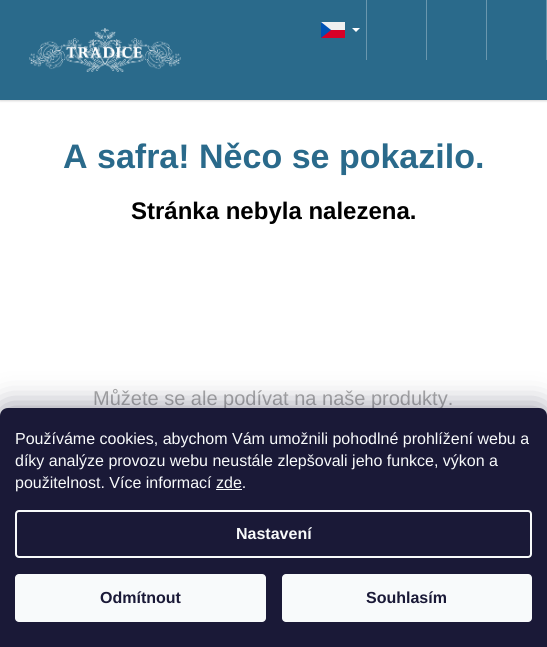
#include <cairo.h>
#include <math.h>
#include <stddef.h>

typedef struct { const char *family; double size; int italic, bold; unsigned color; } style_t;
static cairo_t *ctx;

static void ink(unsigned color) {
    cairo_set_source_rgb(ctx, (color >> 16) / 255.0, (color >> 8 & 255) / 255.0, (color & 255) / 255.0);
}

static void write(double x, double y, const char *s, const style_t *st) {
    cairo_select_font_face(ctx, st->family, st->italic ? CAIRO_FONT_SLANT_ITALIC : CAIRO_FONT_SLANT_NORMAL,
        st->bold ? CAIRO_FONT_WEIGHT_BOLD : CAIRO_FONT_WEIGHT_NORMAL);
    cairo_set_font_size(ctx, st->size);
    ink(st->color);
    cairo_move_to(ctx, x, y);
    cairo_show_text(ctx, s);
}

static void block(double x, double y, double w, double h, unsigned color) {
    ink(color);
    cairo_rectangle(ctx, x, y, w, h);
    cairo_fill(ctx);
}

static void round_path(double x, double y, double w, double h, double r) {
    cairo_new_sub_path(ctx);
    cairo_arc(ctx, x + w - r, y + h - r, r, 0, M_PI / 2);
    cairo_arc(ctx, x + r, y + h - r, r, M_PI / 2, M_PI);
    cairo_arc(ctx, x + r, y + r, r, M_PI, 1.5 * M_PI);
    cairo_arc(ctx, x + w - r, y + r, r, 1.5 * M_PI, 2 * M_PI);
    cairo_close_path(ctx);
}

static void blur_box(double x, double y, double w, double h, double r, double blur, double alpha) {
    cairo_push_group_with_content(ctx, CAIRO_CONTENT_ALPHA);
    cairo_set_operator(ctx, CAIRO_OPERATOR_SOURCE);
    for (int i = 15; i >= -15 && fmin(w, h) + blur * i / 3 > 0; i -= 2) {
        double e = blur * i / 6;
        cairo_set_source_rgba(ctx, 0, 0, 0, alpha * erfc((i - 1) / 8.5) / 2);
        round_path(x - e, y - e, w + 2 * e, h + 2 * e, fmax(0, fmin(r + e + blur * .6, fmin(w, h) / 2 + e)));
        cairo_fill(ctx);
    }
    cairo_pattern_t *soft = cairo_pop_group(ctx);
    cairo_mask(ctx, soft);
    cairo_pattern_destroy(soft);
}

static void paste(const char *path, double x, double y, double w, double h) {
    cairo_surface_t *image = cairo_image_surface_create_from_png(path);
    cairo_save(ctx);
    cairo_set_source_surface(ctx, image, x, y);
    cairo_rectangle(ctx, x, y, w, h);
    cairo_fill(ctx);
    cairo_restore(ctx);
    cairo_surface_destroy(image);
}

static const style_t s1 = {"Liberation Sans", 34, 0, 1, 0x2a6a8b};
static const style_t s2 = {"Liberation Sans", 24, 0, 1, 0x000000};
static const style_t s3 = {"Liberation Sans", 20, 0, 0, 0xaaaaaa};
static const style_t s4 = {"Liberation Sans", 16, 0, 0, 0xf8fafb};
static const style_t s5 = {"Liberation Sans", 16, 0, 1, 0xf8fafb};
static const style_t s6 = {"Liberation Sans", 16, 0, 1, 0x1a1937};

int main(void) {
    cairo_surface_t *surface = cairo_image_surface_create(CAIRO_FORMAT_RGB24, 547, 647);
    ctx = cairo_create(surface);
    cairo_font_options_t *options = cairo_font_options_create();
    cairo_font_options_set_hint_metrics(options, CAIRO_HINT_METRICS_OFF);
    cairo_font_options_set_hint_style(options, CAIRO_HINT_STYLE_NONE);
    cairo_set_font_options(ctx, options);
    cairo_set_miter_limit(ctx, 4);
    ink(0xffffff);
    cairo_paint(ctx);
    ink(0x000000);
    blur_box(0, 1, 547, 100, 0, 1, 0.16);
    block(0, 0, 547, 100, 0x2a6a8b);
    paste("pic1.png", 29, 28, 152, 44);
    block(546, 0, 1, 60, 0x6a97ae);
    paste("pic2.png", 321, 22, 24, 16);
    ink(0xffffff);
    cairo_new_path(ctx);
    cairo_move_to(ctx, 352, 28);
    cairo_line_to(ctx, 360, 28);
    cairo_line_to(ctx, 356, 32);
    cairo_close_path(ctx);
    cairo_fill(ctx);
    block(366, 0, 1, 60, 0x6a97ae);
    block(426, 0, 1, 60, 0x6a97ae);
    block(486, 0, 1, 60, 0x6a97ae);
    write(63, 168, "A safra! Něco se pokazilo.", &s1);
    write(131, 219, "Stránka nebyla nalezena.", &s2);
    write(93, 405, "Můžete se ale podívat na naše produkty.", &s3);
    ink(0x1b1939);
    blur_box(0, 408, 547, 239, 8, 15, 0.5);
    ink(0x1a1937);
    cairo_new_path(ctx);
    cairo_move_to(ctx, 8, 408);
    cairo_line_to(ctx, 539, 408);
    cairo_curve_to(ctx, 543.5, 408, 547, 411.5, 547, 416);
    cairo_line_to(ctx, 547, 647);
    cairo_line_to(ctx, 0, 647);
    cairo_line_to(ctx, 0, 416);
    cairo_curve_to(ctx, 0, 411.5, 3.5, 408, 8, 408);
    cairo_close_path(ctx);
    cairo_fill(ctx);
    write(15, 444, "Používáme cookies, abychom Vám umožnili pohodlné prohlížení webu a", &s4);
    write(15, 466, "díky analýze provozu webu neustále zlepšovali jeho funkce, výkon a", &s4);
    write(15, 488, "použitelnost. Více informací zde.", &s4);
    block(216, 489, 26, 1, 0xf8fafb);
    round_path(16, 511, 515, 46, 3);
    cairo_stroke(ctx);
    write(236, 539, "Nastavení", &s5);
    round_path(15, 574, 251, 48, 4);
    cairo_fill(ctx);
    write(100, 603, "Odmítnout", &s6);
    ink(0xf8fafb);
    round_path(282, 574, 250, 48, 4);
    cairo_fill(ctx);
    write(366, 603, "Souhlasím", &s6);
    cairo_surface_write_to_png(surface, "screenshot.png");
    cairo_font_options_destroy(options);
    cairo_destroy(ctx);
    cairo_surface_destroy(surface);
    return 0;
}
